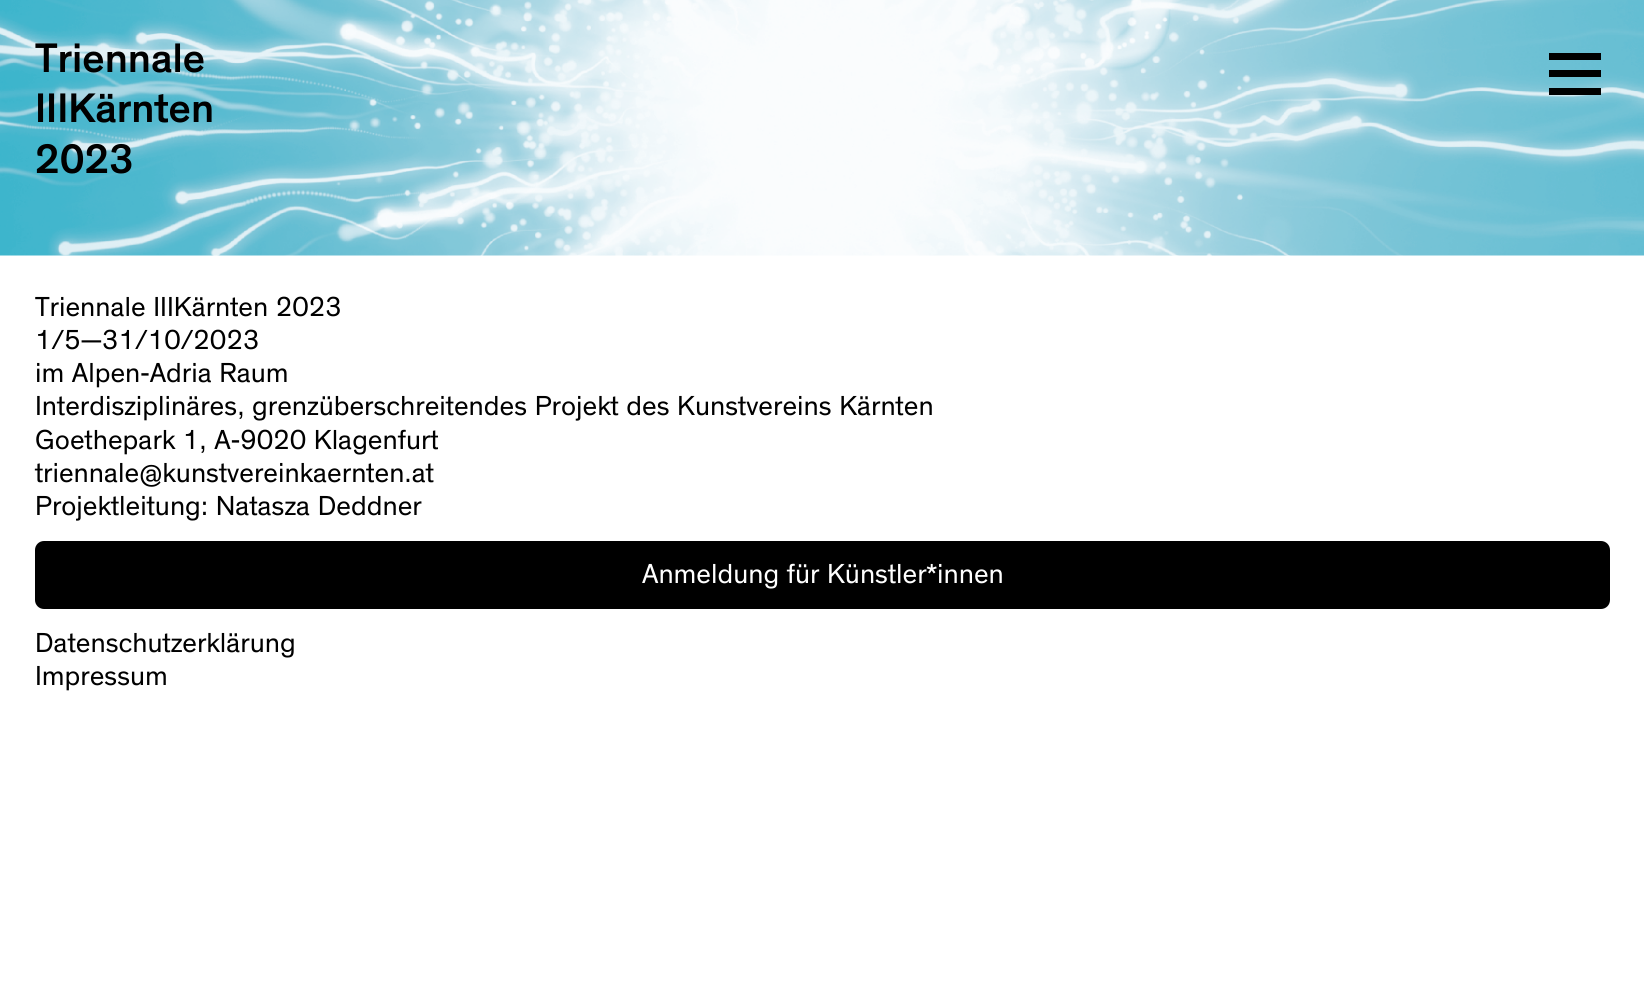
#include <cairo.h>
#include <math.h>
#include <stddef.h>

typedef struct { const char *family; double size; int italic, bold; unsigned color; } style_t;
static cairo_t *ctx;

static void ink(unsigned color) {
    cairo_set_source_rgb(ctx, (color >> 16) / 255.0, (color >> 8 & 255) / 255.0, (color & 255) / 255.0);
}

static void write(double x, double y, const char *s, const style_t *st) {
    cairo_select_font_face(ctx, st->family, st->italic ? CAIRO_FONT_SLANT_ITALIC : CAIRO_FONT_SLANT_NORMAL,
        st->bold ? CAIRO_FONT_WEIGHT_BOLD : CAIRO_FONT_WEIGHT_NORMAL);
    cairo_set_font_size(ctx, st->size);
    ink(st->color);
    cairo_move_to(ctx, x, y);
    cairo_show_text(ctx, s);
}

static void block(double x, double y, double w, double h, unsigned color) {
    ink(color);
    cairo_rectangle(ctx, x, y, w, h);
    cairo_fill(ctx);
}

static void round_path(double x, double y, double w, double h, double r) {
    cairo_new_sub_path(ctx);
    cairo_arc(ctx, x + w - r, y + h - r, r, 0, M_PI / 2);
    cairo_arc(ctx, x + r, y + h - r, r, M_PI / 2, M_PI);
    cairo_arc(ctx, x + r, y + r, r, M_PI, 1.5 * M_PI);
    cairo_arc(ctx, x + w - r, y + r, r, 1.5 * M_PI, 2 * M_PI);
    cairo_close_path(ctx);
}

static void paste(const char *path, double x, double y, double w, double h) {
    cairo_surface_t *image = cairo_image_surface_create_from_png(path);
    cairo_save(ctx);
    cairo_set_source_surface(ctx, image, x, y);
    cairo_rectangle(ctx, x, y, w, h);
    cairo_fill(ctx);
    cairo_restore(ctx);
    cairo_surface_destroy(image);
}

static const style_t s1 = {"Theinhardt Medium", 42, 0, 0, 0x000000};
static const style_t s2 = {"Theinhardt", 28, 0, 0, 0x000000};
static const style_t s3 = {"Theinhardt", 28, 0, 0, 0xffffff};

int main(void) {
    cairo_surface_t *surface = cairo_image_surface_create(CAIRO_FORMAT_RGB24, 1644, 989);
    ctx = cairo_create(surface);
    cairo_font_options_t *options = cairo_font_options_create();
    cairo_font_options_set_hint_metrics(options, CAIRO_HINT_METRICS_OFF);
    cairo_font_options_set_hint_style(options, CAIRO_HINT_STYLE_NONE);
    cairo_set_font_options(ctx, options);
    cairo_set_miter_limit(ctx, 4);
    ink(0xffffff);
    cairo_paint(ctx);
    paste("pic1.png", 0, 0, 1644, 256);
    write(35, 72, "Triennale", &s1);
    write(35, 122, "IIIKärnten", &s1);
    write(35, 173, "2023", &s1);
    block(1549, 70, 52, 7, 0x000000);
    block(1549, 53, 52, 7, 0x000000);
    block(1549, 88, 52, 7, 0x000000);
    write(35, 316, "Triennale IIIKärnten 2023", &s2);
    write(35, 349, "1/5—31/10/2023", &s2);
    write(35, 382, "im Alpen-Adria Raum", &s2);
    write(35, 415, "Interdisziplinäres, grenzüberschreitendes Projekt des Kunstvereins Kärnten", &s2);
    write(35, 449, "Goethepark 1, A-9020 Klagenfurt", &s2);
    write(35, 482, "triennale@kunstvereinkaernten.at", &s2);
    write(35, 515, "Projektleitung: Natasza Deddner", &s2);
    round_path(35, 541, 1575, 68, 9);
    cairo_fill(ctx);
    write(642, 583, "Anmeldung für Künstler*innen", &s3);
    write(35, 652, "Datenschutzerklärung", &s2);
    write(35, 685, "Impressum", &s2);
    cairo_surface_write_to_png(surface, "screenshot.png");
    cairo_font_options_destroy(options);
    cairo_destroy(ctx);
    cairo_surface_destroy(surface);
    return 0;
}
